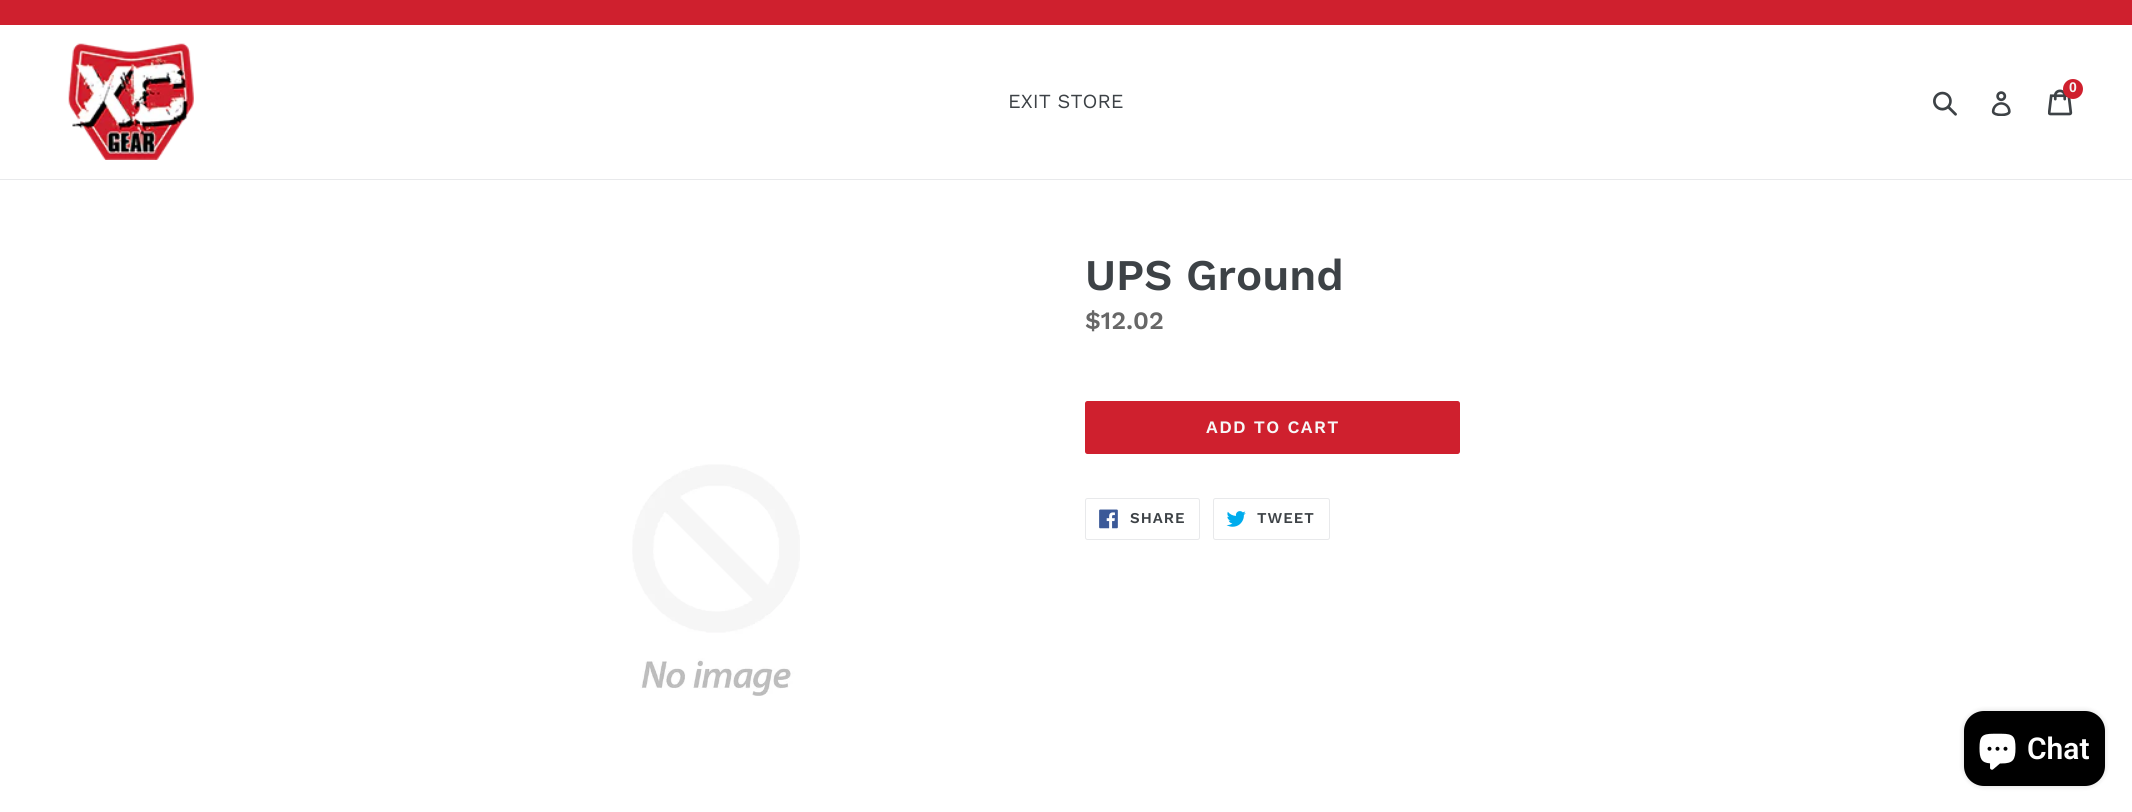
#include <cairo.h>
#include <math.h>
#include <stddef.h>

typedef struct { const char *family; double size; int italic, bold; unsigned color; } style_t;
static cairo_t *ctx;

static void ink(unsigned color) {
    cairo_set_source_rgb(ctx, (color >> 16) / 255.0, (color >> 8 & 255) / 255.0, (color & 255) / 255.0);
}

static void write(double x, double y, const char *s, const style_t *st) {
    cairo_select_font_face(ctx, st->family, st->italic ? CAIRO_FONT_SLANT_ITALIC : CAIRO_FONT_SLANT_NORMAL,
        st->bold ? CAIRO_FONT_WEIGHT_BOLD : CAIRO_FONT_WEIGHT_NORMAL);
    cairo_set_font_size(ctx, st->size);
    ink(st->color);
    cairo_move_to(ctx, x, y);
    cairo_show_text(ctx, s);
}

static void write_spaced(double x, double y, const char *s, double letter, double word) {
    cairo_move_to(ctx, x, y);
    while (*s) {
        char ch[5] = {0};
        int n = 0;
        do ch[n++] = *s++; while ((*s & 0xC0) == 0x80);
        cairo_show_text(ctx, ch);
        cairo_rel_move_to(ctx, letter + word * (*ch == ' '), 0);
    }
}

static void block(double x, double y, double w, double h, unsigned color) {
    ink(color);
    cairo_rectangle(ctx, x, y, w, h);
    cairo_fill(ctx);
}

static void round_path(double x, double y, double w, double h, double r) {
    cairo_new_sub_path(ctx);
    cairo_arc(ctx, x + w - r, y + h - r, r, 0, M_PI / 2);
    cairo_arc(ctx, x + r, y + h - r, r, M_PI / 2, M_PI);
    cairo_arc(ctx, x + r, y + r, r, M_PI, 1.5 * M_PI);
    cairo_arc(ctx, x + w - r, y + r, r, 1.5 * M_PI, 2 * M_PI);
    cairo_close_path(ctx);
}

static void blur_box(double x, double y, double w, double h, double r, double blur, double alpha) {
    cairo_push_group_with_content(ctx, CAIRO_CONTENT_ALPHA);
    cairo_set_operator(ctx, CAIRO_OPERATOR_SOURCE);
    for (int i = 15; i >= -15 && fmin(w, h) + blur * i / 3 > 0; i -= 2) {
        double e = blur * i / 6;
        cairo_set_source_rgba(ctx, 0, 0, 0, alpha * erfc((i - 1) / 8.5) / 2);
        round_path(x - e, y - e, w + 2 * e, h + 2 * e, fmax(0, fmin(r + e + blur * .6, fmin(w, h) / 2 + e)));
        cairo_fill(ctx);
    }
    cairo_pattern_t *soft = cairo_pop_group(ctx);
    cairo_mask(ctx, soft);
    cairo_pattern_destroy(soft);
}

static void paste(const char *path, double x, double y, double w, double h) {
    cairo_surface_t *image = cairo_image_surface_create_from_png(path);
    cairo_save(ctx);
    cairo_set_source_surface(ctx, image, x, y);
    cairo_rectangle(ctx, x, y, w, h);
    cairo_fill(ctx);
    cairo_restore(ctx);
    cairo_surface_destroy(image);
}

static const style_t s1 = {"Liberation Sans", 14, 0, 1, 0xf7f7f7};
static const style_t s2 = {"Work Sans", 20, 0, 0, 0x3d4246};
static const style_t s3 = {"Work Sans SemiBold", 43.75, 0, 0, 0x3d4246};
static const style_t s4 = {"Work Sans SemiBold", 25, 0, 0, 0x676767};
static const style_t s5 = {"Roboto SemiBold", 30, 0, 0, 0xffffff};

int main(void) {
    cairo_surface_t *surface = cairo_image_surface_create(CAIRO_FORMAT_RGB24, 2132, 812);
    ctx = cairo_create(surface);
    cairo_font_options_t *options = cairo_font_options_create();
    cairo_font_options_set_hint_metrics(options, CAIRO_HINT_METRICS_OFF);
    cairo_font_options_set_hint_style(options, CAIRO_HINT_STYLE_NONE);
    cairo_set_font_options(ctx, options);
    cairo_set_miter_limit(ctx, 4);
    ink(0xffffff);
    cairo_paint(ctx);
    block(0, 0, 2132, 25, 0xcf202e);
    block(0, 179, 2132, 1, 0xe8e9eb);
    paste("pic1.png", 68, 43, 126, 117);
    paste("pic2.png", 2048, 89, 25, 27);
    ink(0xcf202e);
    cairo_arc(ctx, 2073, 89, 10, 0, 2 * M_PI);
    cairo_fill(ctx);
    write(2069, 92, "0", &s1);
    paste("pic3.png", 1933, 91, 24, 25);
    paste("pic4.png", 1991, 91, 20, 25);
    write(1008, 108, "EXIT STORE", &s2);
    write(1085, 290, "UPS Ground", &s3);
    write(1085, 329, "$12.02", &s4);
    ink(0xcf202e);
    round_path(1085, 401, 375, 53, 2.5);
    cairo_fill(ctx);
    cairo_set_font_size(ctx, 17.5);
    ink(0xf7f7f7);
    write_spaced(1206, 433, "ADD TO CART", 1.4, 0);
    round_path(1085.5, 498.5, 114, 41, 2);
    ink(0xe8e9eb);
    cairo_set_line_width(ctx, 1);
    cairo_stroke(ctx);
    paste("pic5.png", 1099, 509, 19, 20);
    cairo_set_font_size(ctx, 15);
    ink(0x3d4246);
    write_spaced(1130, 523, "SHARE", 1, 0);
    round_path(1213.5, 498.5, 116, 41, 2);
    ink(0xe8e9eb);
    cairo_stroke(ctx);
    paste("pic6.png", 1226, 511, 20, 16);
    ink(0x3d4246);
    write_spaced(1257, 523, "TWEET", 1, 0);
    paste("pic7.png", 632, 464, 168, 232);
    ink(0x000000);
    blur_box(1964, 711, 141, 75, 20, 3, 0.15);
    ink(0x000000);
    round_path(1964, 711, 141, 75, 20);
    cairo_fill(ctx);
    paste("pic8.png", 1979, 733, 37, 37);
    write(2027, 759, "Chat", &s5);
    cairo_surface_write_to_png(surface, "screenshot.png");
    cairo_font_options_destroy(options);
    cairo_destroy(ctx);
    cairo_surface_destroy(surface);
    return 0;
}
